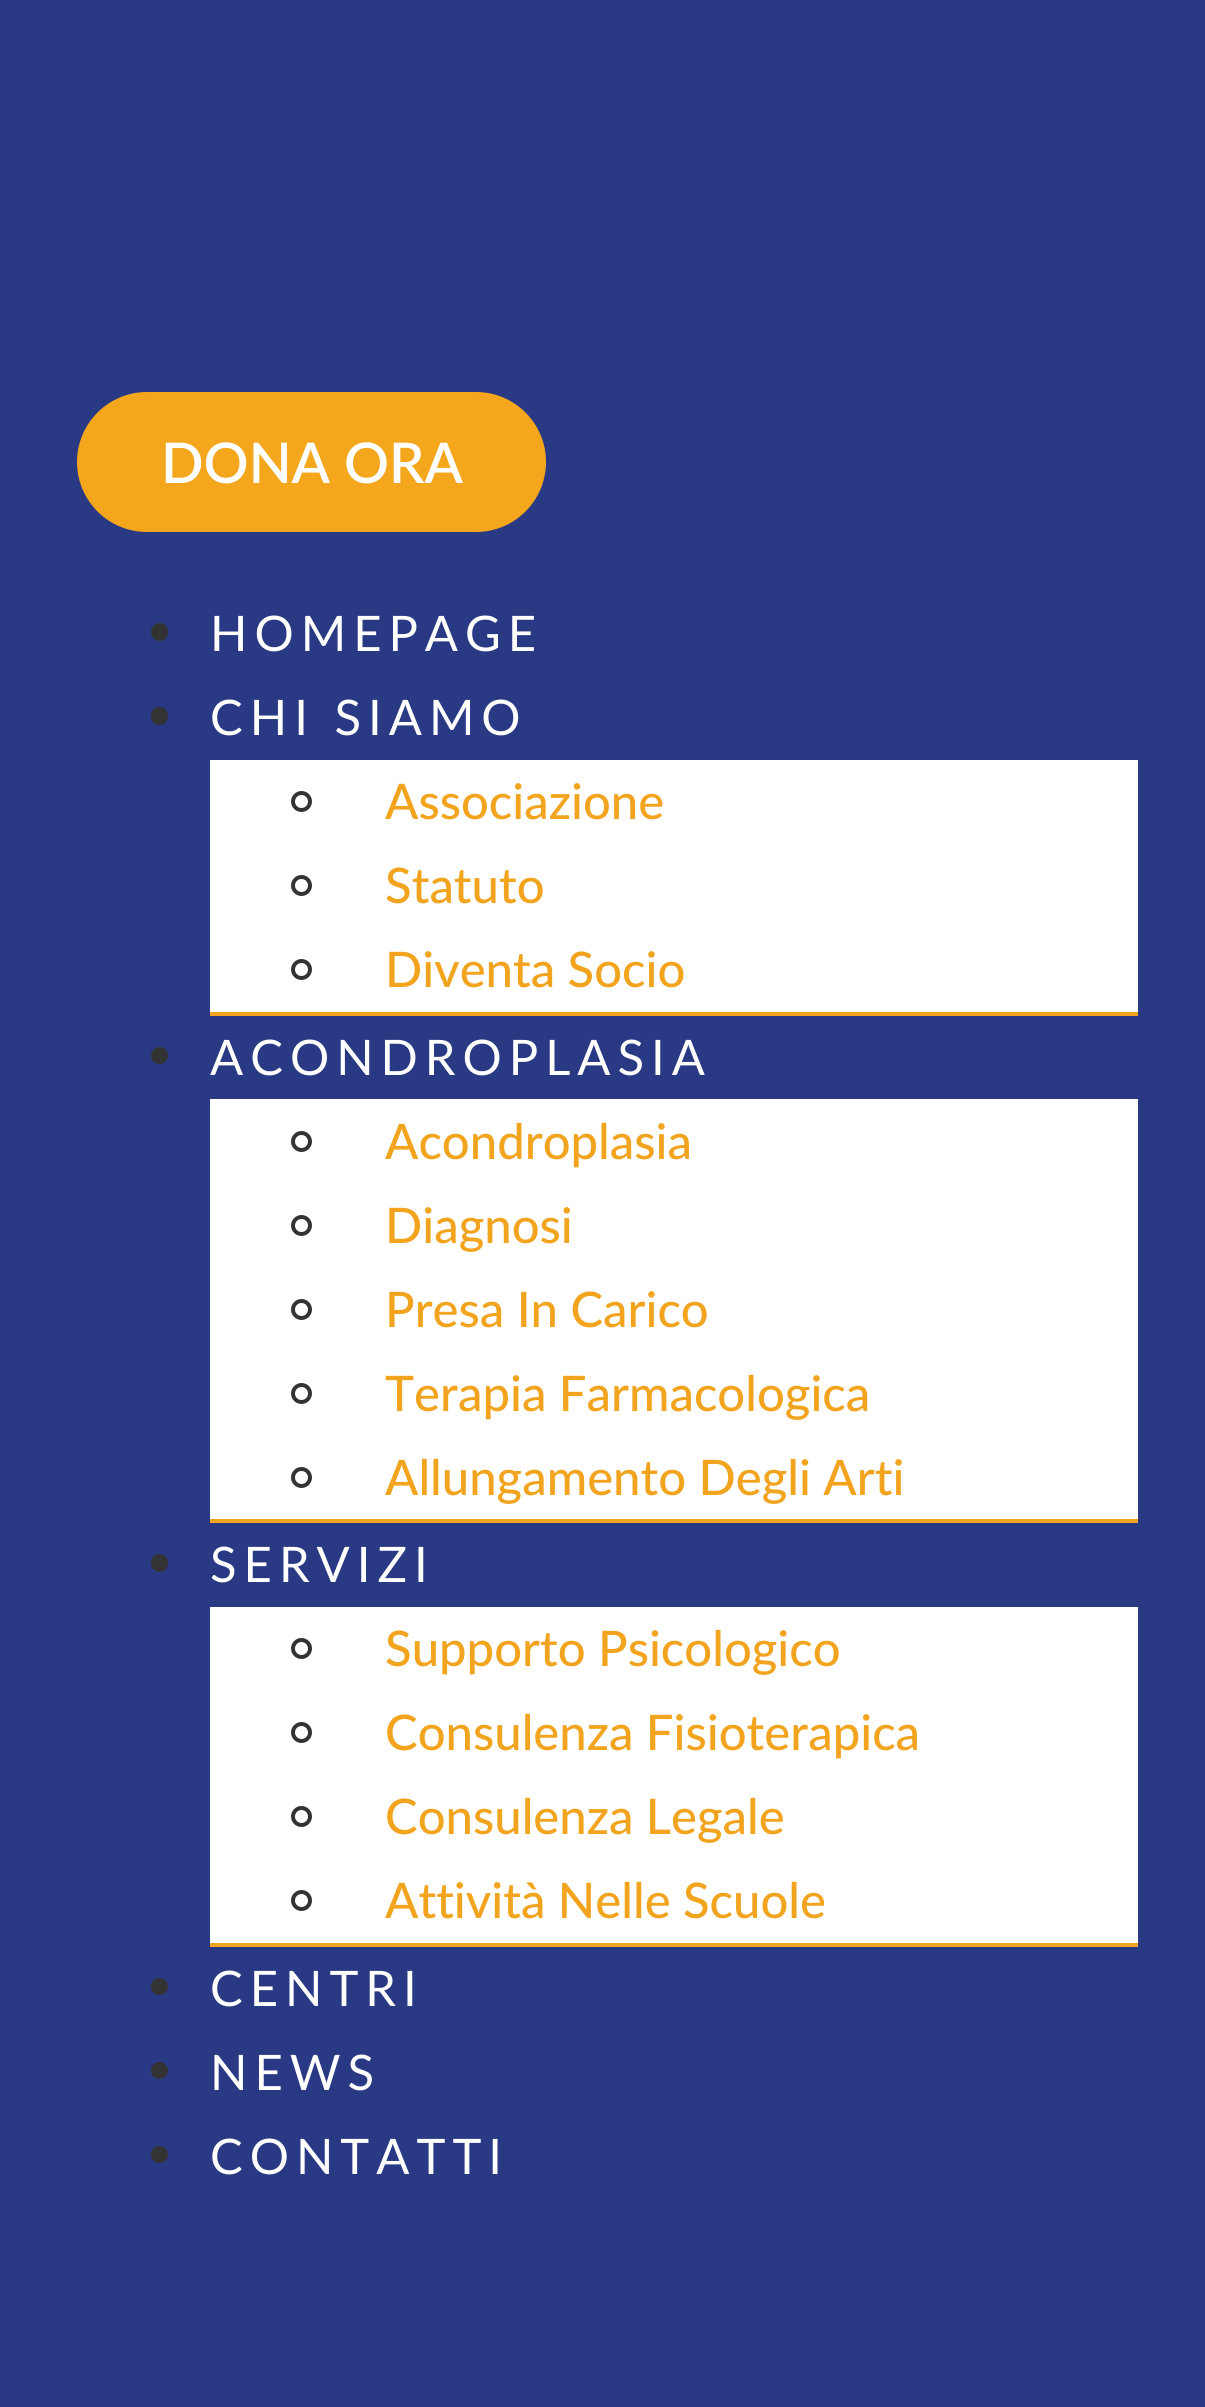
#include <cairo.h>
#include <math.h>
#include <stddef.h>

typedef struct { const char *family; double size; int italic, bold; unsigned color; } style_t;
static cairo_t *ctx;

static void ink(unsigned color) {
    cairo_set_source_rgb(ctx, (color >> 16) / 255.0, (color >> 8 & 255) / 255.0, (color & 255) / 255.0);
}

static void write(double x, double y, const char *s, const style_t *st) {
    cairo_select_font_face(ctx, st->family, st->italic ? CAIRO_FONT_SLANT_ITALIC : CAIRO_FONT_SLANT_NORMAL,
        st->bold ? CAIRO_FONT_WEIGHT_BOLD : CAIRO_FONT_WEIGHT_NORMAL);
    cairo_set_font_size(ctx, st->size);
    ink(st->color);
    cairo_move_to(ctx, x, y);
    cairo_show_text(ctx, s);
}

static void write_spaced(double x, double y, const char *s, double letter, double word) {
    cairo_move_to(ctx, x, y);
    while (*s) {
        char ch[5] = {0};
        int n = 0;
        do ch[n++] = *s++; while ((*s & 0xC0) == 0x80);
        cairo_show_text(ctx, ch);
        cairo_rel_move_to(ctx, letter + word * (*ch == ' '), 0);
    }
}

static void block(double x, double y, double w, double h, unsigned color) {
    ink(color);
    cairo_rectangle(ctx, x, y, w, h);
    cairo_fill(ctx);
}

static void round_path(double x, double y, double w, double h, double r) {
    cairo_new_sub_path(ctx);
    cairo_arc(ctx, x + w - r, y + h - r, r, 0, M_PI / 2);
    cairo_arc(ctx, x + r, y + h - r, r, M_PI / 2, M_PI);
    cairo_arc(ctx, x + r, y + r, r, M_PI, 1.5 * M_PI);
    cairo_arc(ctx, x + w - r, y + r, r, 1.5 * M_PI, 2 * M_PI);
    cairo_close_path(ctx);
}

static const style_t s1 = {"Lato SemiBold", 56, 0, 0, 0xffffff};
static const style_t s2 = {"Lato Medium", 49, 0, 0, 0xf2a41f};

int main(void) {
    cairo_surface_t *surface = cairo_image_surface_create(CAIRO_FORMAT_RGB24, 1205, 2407);
    ctx = cairo_create(surface);
    cairo_font_options_t *options = cairo_font_options_create();
    cairo_font_options_set_hint_metrics(options, CAIRO_HINT_METRICS_OFF);
    cairo_font_options_set_hint_style(options, CAIRO_HINT_STYLE_NONE);
    cairo_set_font_options(ctx, options);
    cairo_set_miter_limit(ctx, 4);
    ink(0x293984);
    cairo_paint(ctx);
    ink(0xf4a61c);
    round_path(73.5, 388.5, 476, 147, 73.5);
    cairo_fill_preserve(ctx);
    ink(0x293984);
    cairo_set_line_width(ctx, 7);
    cairo_stroke(ctx);
    write(161, 483, "DONA ORA", &s1);
    ink(0x333333);
    round_path(151, 623, 17, 18, 8.5);
    cairo_fill(ctx);
    cairo_select_font_face(ctx, "Lato", CAIRO_FONT_SLANT_NORMAL, CAIRO_FONT_WEIGHT_NORMAL);
    cairo_set_font_size(ctx, 49);
    ink(0xffffff);
    write_spaced(210, 651, "HOMEPAGE", 7, 0);
    ink(0x333333);
    round_path(151, 707, 17, 18, 8.5);
    cairo_fill(ctx);
    ink(0xffffff);
    write_spaced(210, 735, "CHI SIAMO", 7, 0);
    block(210, 760, 928, 252, 0xffffff);
    block(210, 1012, 928, 4, 0xf2a41f);
    cairo_new_path(ctx);
    cairo_arc(ctx, 301.5, 801.5, 8.5, 0, 2 * M_PI);
    ink(0x333333);
    cairo_set_line_width(ctx, 4);
    cairo_stroke(ctx);
    write(385, 819, "Associazione", &s2);
    cairo_new_path(ctx);
    cairo_arc(ctx, 301.5, 885.5, 8.5, 0, 2 * M_PI);
    ink(0x333333);
    cairo_stroke(ctx);
    write(385, 903, "Statuto", &s2);
    cairo_new_path(ctx);
    cairo_arc(ctx, 301.5, 969.5, 8.5, 0, 2 * M_PI);
    ink(0x333333);
    cairo_stroke(ctx);
    write(385, 987, "Diventa Socio", &s2);
    ink(0x333333);
    cairo_new_path(ctx);
    cairo_arc(ctx, 159.5, 1055.5, 8.5, 0, 2 * M_PI);
    cairo_fill(ctx);
    cairo_select_font_face(ctx, "Lato", CAIRO_FONT_SLANT_NORMAL, CAIRO_FONT_WEIGHT_NORMAL);
    ink(0xffffff);
    write_spaced(210, 1075, "ACONDROPLASIA", 7, 0);
    block(210, 1099, 928, 420, 0xffffff);
    block(210, 1519, 928, 4, 0xf2a41f);
    cairo_new_path(ctx);
    cairo_arc(ctx, 301.5, 1141.5, 8.5, 0, 2 * M_PI);
    ink(0x333333);
    cairo_stroke(ctx);
    write(385, 1159, "Acondroplasia", &s2);
    cairo_new_path(ctx);
    cairo_arc(ctx, 301.5, 1225.5, 8.5, 0, 2 * M_PI);
    ink(0x333333);
    cairo_stroke(ctx);
    write(385, 1243, "Diagnosi", &s2);
    cairo_new_path(ctx);
    cairo_arc(ctx, 301.5, 1309.5, 8.5, 0, 2 * M_PI);
    ink(0x333333);
    cairo_stroke(ctx);
    write(385, 1327, "Presa In Carico", &s2);
    cairo_new_path(ctx);
    cairo_arc(ctx, 301.5, 1393.5, 8.5, 0, 2 * M_PI);
    ink(0x333333);
    cairo_stroke(ctx);
    write(385, 1411, "Terapia Farmacologica", &s2);
    cairo_new_path(ctx);
    cairo_arc(ctx, 301.5, 1477.5, 8.5, 0, 2 * M_PI);
    ink(0x333333);
    cairo_stroke(ctx);
    write(385, 1495, "Allungamento Degli Arti", &s2);
    ink(0x333333);
    round_path(151, 1554, 17, 18, 8.5);
    cairo_fill(ctx);
    cairo_select_font_face(ctx, "Lato", CAIRO_FONT_SLANT_NORMAL, CAIRO_FONT_WEIGHT_NORMAL);
    ink(0xffffff);
    write_spaced(210, 1582, "SERVIZI", 7, 0);
    block(210, 1607, 928, 336, 0xffffff);
    block(210, 1943, 928, 4, 0xf2a41f);
    cairo_new_path(ctx);
    cairo_arc(ctx, 301.5, 1648.5, 8.5, 0, 2 * M_PI);
    ink(0x333333);
    cairo_stroke(ctx);
    write(385, 1666, "Supporto Psicologico", &s2);
    cairo_new_path(ctx);
    cairo_arc(ctx, 301.5, 1732.5, 8.5, 0, 2 * M_PI);
    ink(0x333333);
    cairo_stroke(ctx);
    write(385, 1750, "Consulenza Fisioterapica", &s2);
    cairo_new_path(ctx);
    cairo_arc(ctx, 301.5, 1816.5, 8.5, 0, 2 * M_PI);
    ink(0x333333);
    cairo_stroke(ctx);
    write(385, 1834, "Consulenza Legale", &s2);
    cairo_new_path(ctx);
    cairo_arc(ctx, 301.5, 1900.5, 8.5, 0, 2 * M_PI);
    ink(0x333333);
    cairo_stroke(ctx);
    write(385, 1918, "Attività Nelle Scuole", &s2);
    ink(0x333333);
    cairo_new_path(ctx);
    cairo_arc(ctx, 159.5, 1986.5, 8.5, 0, 2 * M_PI);
    cairo_fill(ctx);
    cairo_select_font_face(ctx, "Lato", CAIRO_FONT_SLANT_NORMAL, CAIRO_FONT_WEIGHT_NORMAL);
    ink(0xffffff);
    write_spaced(210, 2006, "CENTRI", 7, 0);
    ink(0x333333);
    cairo_new_path(ctx);
    cairo_arc(ctx, 159.5, 2070.5, 8.5, 0, 2 * M_PI);
    cairo_fill(ctx);
    ink(0xffffff);
    write_spaced(210, 2090, "NEWS", 7, 0);
    ink(0x333333);
    cairo_new_path(ctx);
    cairo_arc(ctx, 159.5, 2154.5, 8.5, 0, 2 * M_PI);
    cairo_fill(ctx);
    ink(0xffffff);
    write_spaced(210, 2174, "CONTATTI", 7, 0);
    cairo_surface_write_to_png(surface, "screenshot.png");
    cairo_font_options_destroy(options);
    cairo_destroy(ctx);
    cairo_surface_destroy(surface);
    return 0;
}
